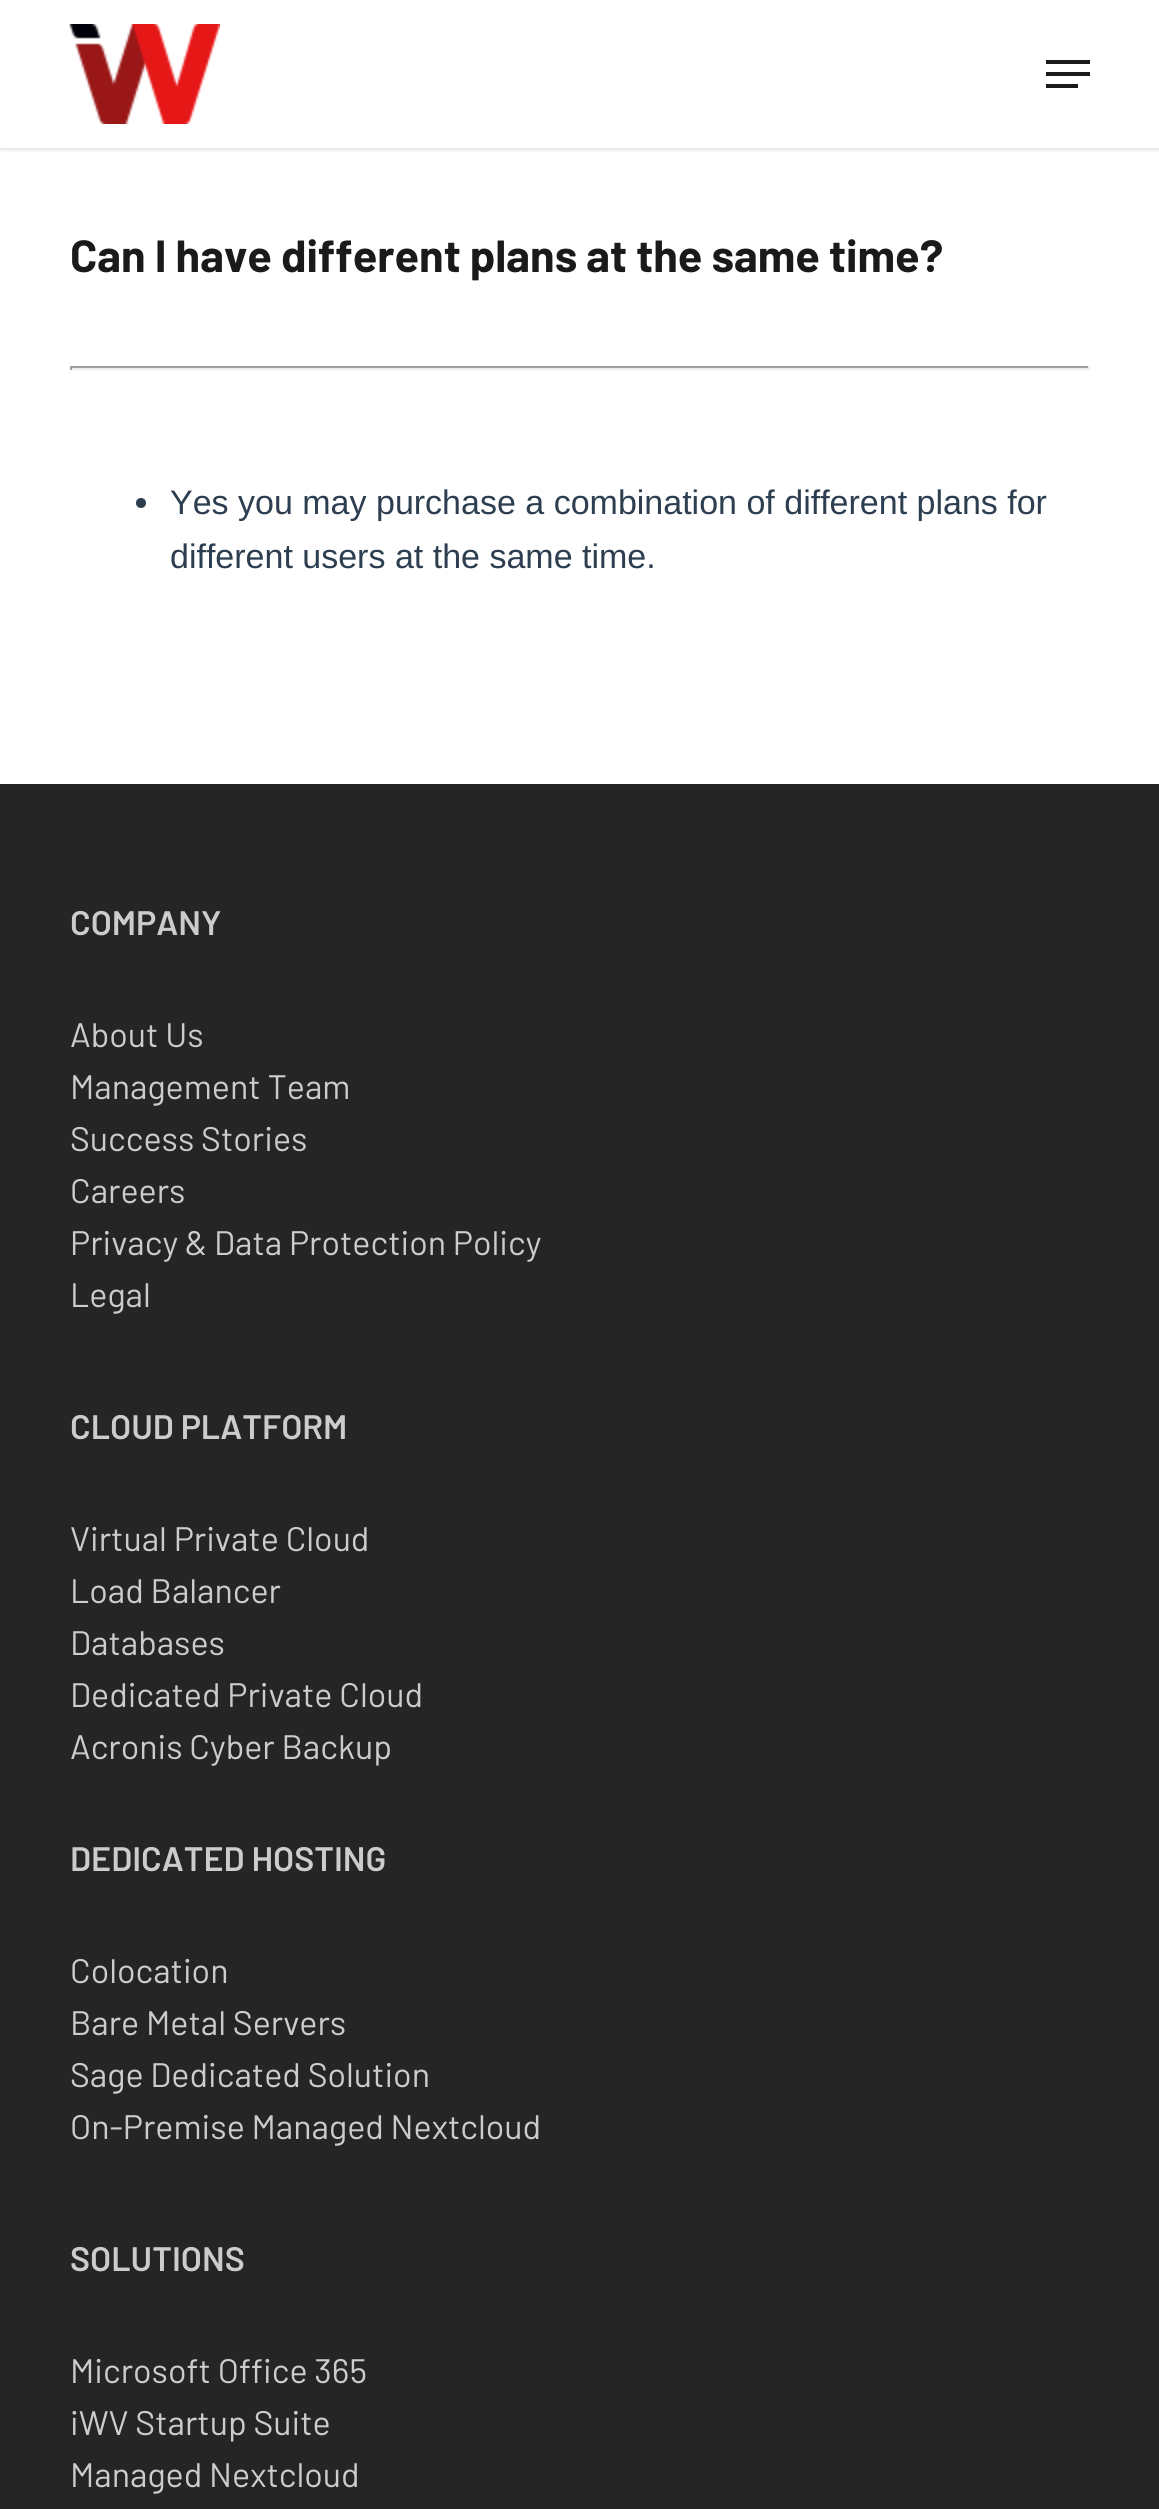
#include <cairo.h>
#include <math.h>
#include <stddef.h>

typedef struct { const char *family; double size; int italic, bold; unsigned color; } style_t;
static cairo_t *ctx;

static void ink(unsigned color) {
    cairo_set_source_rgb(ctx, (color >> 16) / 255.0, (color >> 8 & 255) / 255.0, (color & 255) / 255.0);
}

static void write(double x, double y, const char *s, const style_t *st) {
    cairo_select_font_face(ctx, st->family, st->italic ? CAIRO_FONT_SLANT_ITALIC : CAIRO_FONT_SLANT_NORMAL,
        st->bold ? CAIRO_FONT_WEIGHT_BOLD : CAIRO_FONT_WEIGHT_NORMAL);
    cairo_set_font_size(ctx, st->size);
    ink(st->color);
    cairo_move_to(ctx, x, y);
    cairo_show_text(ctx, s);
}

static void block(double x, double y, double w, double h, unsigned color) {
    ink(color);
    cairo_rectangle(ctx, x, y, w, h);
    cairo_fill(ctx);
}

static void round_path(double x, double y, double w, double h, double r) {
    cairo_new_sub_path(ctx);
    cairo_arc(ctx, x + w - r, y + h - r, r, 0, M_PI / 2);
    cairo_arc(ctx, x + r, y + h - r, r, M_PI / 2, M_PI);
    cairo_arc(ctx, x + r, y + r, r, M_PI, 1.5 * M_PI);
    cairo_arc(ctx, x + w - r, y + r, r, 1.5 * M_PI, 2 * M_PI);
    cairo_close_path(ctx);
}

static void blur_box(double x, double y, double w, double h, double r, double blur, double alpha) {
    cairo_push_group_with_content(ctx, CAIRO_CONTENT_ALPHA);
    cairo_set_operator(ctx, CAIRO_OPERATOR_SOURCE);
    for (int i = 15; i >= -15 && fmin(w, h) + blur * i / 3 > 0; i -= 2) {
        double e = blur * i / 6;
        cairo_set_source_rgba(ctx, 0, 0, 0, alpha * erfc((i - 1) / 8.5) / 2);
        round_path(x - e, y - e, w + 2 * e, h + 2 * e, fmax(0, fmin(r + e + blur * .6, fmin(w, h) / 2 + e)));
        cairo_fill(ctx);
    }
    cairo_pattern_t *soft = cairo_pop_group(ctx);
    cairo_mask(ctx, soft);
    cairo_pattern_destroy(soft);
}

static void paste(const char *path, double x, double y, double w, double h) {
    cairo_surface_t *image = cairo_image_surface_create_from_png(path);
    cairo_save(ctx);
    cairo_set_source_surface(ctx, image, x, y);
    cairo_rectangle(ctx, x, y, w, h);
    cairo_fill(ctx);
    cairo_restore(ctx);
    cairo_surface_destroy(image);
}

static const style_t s1 = {"Barlow", 45, 0, 1, 0x1a1a1a};
static const style_t s2 = {"Liberation Sans", 34, 0, 0, 0x2c3e50};
static const style_t s3 = {"Barlow SemiBold", 34, 0, 0, 0xcccccc};
static const style_t s4 = {"Barlow", 34, 0, 0, 0xcccccc};

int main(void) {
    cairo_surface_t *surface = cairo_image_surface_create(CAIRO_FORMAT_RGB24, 1159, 2509);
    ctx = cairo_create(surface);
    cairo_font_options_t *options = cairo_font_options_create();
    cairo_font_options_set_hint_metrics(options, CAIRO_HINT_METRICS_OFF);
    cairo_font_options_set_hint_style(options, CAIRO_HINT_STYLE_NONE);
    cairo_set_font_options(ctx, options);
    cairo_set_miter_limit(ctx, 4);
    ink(0xffffff);
    cairo_paint(ctx);
    cairo_save(ctx);
    cairo_rectangle(ctx, 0, 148, 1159, 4);
    cairo_clip(ctx);
    ink(0x000000);
    blur_box(0, 0, 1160, 148, 0, 3, 0.22);
    cairo_restore(ctx);
    paste("pic1.png", 69, 24, 151, 100);
    block(1046, 60, 44, 4, 0x1a1a1a);
    block(1046, 84, 32, 4, 0x1a1a1a);
    block(1046, 72, 44, 4, 0x1a1a1a);
    write(70, 272, "Can I have different plans at the same time?", &s1);
    block(70, 366, 1020, 2, 0x9f9f9f);
    block(1088, 366, 2, 4, 0xeeeeee);
    block(70, 368, 1020, 2, 0xeeeeee);
    block(70, 366, 2, 4, 0x9f9f9f);
    ink(0x2c3e50);
    cairo_new_path(ctx);
    cairo_arc(ctx, 141, 503, 5, 0, 2 * M_PI);
    cairo_fill(ctx);
    write(170, 514, "Yes you may purchase a combination of different plans for", &s2);
    write(170, 568, "different users at the same time.", &s2);
    block(0, 784, 1159, 1725, 0x252525);
    write(70, 935, "COMPANY", &s3);
    write(70, 1047, "About Us", &s4);
    write(70, 1099, "Management Team", &s4);
    write(70, 1151, "Success Stories", &s4);
    write(70, 1203, "Careers", &s4);
    write(70, 1255, "Privacy & Data Protection Policy", &s4);
    write(70, 1307, "Legal", &s4);
    write(70, 1439, "CLOUD PLATFORM", &s3);
    write(70, 1551, "Virtual Private Cloud", &s4);
    write(70, 1603, "Load Balancer", &s4);
    write(70, 1655, "Databases", &s4);
    write(70, 1707, "Dedicated Private Cloud", &s4);
    write(70, 1759, "Acronis Cyber Backup", &s4);
    write(70, 1871, "DEDICATED HOSTING", &s3);
    write(70, 1983, "Colocation", &s4);
    write(70, 2035, "Bare Metal Servers", &s4);
    write(70, 2087, "Sage Dedicated Solution", &s4);
    write(70, 2139, "On-Premise Managed Nextcloud", &s4);
    write(70, 2271, "SOLUTIONS", &s3);
    write(70, 2383, "Microsoft Office 365", &s4);
    write(70, 2435, "iWV Startup Suite", &s4);
    write(70, 2487, "Managed Nextcloud", &s4);
    cairo_surface_write_to_png(surface, "screenshot.png");
    cairo_font_options_destroy(options);
    cairo_destroy(ctx);
    cairo_surface_destroy(surface);
    return 0;
}
